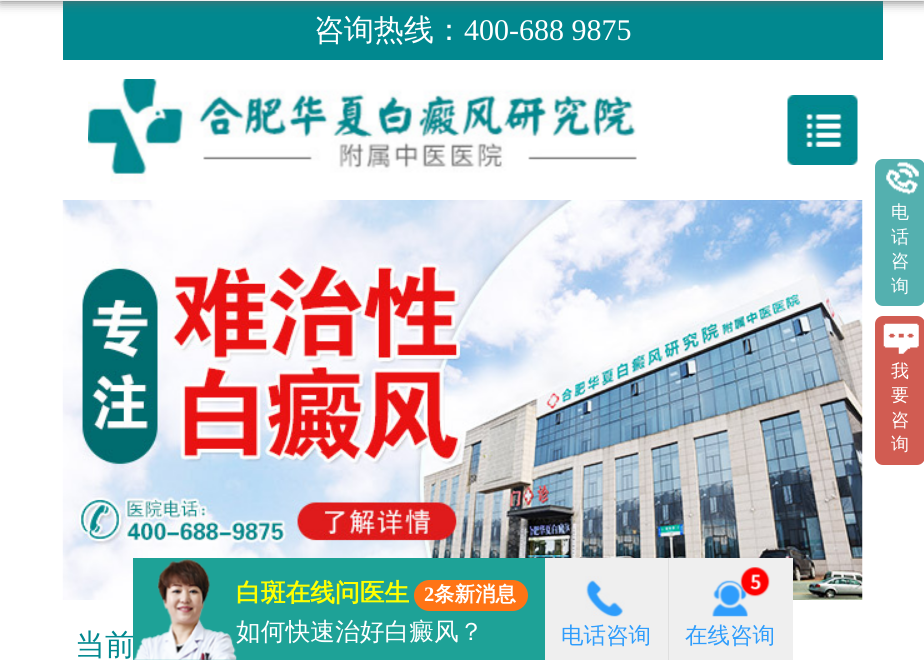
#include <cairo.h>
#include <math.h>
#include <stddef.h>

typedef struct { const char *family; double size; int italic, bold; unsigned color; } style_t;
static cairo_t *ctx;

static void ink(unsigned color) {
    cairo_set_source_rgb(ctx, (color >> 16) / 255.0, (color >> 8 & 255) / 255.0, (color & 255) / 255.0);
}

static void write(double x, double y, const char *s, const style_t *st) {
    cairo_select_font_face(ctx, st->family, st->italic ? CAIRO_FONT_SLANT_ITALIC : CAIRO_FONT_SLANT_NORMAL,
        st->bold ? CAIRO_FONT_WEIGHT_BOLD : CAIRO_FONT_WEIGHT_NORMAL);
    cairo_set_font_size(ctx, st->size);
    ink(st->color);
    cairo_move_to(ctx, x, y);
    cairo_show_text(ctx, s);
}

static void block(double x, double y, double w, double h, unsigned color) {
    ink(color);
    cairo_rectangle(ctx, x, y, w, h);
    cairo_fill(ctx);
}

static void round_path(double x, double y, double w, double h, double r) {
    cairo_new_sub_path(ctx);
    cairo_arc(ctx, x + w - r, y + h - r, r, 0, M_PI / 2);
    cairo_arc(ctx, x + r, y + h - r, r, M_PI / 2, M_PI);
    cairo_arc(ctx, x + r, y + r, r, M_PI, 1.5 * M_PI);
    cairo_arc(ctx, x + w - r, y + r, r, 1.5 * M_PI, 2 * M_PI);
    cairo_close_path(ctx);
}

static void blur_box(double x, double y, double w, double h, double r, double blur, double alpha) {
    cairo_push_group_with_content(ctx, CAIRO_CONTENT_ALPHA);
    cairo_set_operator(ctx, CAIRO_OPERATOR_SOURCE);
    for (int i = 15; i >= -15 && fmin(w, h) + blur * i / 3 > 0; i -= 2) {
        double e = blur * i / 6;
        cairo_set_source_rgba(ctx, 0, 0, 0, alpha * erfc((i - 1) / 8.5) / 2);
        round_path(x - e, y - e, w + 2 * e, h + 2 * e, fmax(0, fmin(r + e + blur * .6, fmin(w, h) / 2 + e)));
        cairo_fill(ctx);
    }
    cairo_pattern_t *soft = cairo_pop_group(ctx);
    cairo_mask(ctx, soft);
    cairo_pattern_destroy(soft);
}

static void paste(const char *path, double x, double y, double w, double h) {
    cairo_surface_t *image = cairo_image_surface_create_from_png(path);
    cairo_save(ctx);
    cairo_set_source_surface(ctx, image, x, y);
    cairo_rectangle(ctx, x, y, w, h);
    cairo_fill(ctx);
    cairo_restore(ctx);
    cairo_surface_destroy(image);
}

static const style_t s1 = {"WenQuanYi Zen Hei Medium", 30, 0, 0, 0xffffff};
static const style_t s2 = {"Liberation Serif", 30, 0, 0, 0xffffff};
static const style_t s3 = {"WenQuanYi Zen Hei Medium", 18, 0, 0, 0xffffff};
static const style_t s4 = {"WenQuanYi Zen Hei Medium", 30, 0, 0, 0x01888f};
static const style_t s5 = {"WenQuanYi Zen Hei Medium", 24.75, 0, 0, 0xffffff};
static const style_t s6 = {"WenQuanYi Zen Hei", 24.75, 0, 1, 0xffff00};
static const style_t s7 = {"Liberation Serif", 20.5, 0, 1, 0xffffff};
static const style_t s8 = {"WenQuanYi Zen Hei", 20.5, 0, 1, 0xffffff};
static const style_t s9 = {"WenQuanYi Zen Hei Medium", 22.5, 0, 0, 0x2f9dfc};

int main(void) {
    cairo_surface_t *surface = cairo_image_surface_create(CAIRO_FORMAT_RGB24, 924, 660);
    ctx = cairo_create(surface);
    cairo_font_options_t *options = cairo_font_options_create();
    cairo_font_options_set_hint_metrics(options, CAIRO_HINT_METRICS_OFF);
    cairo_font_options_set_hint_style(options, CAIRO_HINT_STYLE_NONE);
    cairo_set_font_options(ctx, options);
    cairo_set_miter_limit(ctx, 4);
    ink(0xffffff);
    cairo_paint(ctx);
    block(63, 1, 820, 59, 0x01888f);
    ink(0x666666);
    blur_box(0, -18, 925, 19, 0, 6, 1);
    block(0, 0, 924, 1, 0xf1f1f1);
    write(314, 40, "咨询热线：", &s1);
    write(464, 40, "400-688 9875", &s2);
    paste("pic1.png", 88, 79, 549, 105);
    paste("pic2.png", 787, 95, 71, 70);
    paste("pic3.png", 62, 200, 801, 400);
    ink(0x54b0af);
    round_path(875, 159, 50, 147, 8);
    cairo_fill(ctx);
    paste("pic4.png", 886, 161, 33, 34);
    write(891, 218, "电", &s3);
    write(891, 243, "话", &s3);
    write(891, 267, "咨", &s3);
    write(891, 292, "询", &s3);
    ink(0xd15c52);
    round_path(875, 316, 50, 149, 8);
    cairo_fill(ctx);
    paste("pic5.png", 883, 323, 36, 31);
    write(891, 377, "我", &s3);
    write(891, 401, "要", &s3);
    write(891, 426, "咨", &s3);
    write(891, 450, "询", &s3);
    write(75, 655, "当前", &s4);
    block(133, 558, 412, 102, 0x1ea297);
    write(236, 640, "如何快速治好白癜风？", &s5);
    paste("pic6.png", 133, 559, 104, 101);
    write(236, 601, "白斑在线问医生", &s6);
    ink(0xff7415);
    round_path(414, 580, 114, 31, 15.5);
    cairo_fill(ctx);
    write(424, 601, "2", &s7);
    write(434, 601, "条新消息", &s8);
    block(545, 558, 248, 102, 0xefefef);
    block(668, 558, 1, 102, 0xdfdfdf);
    paste("pic7.png", 585, 576, 40, 41);
    write(561, 643, "电话咨询", &s9);
    paste("pic8.png", 712, 567, 58, 50);
    write(685, 643, "在线咨询", &s9);
    cairo_surface_write_to_png(surface, "screenshot.png");
    cairo_font_options_destroy(options);
    cairo_destroy(ctx);
    cairo_surface_destroy(surface);
    return 0;
}
